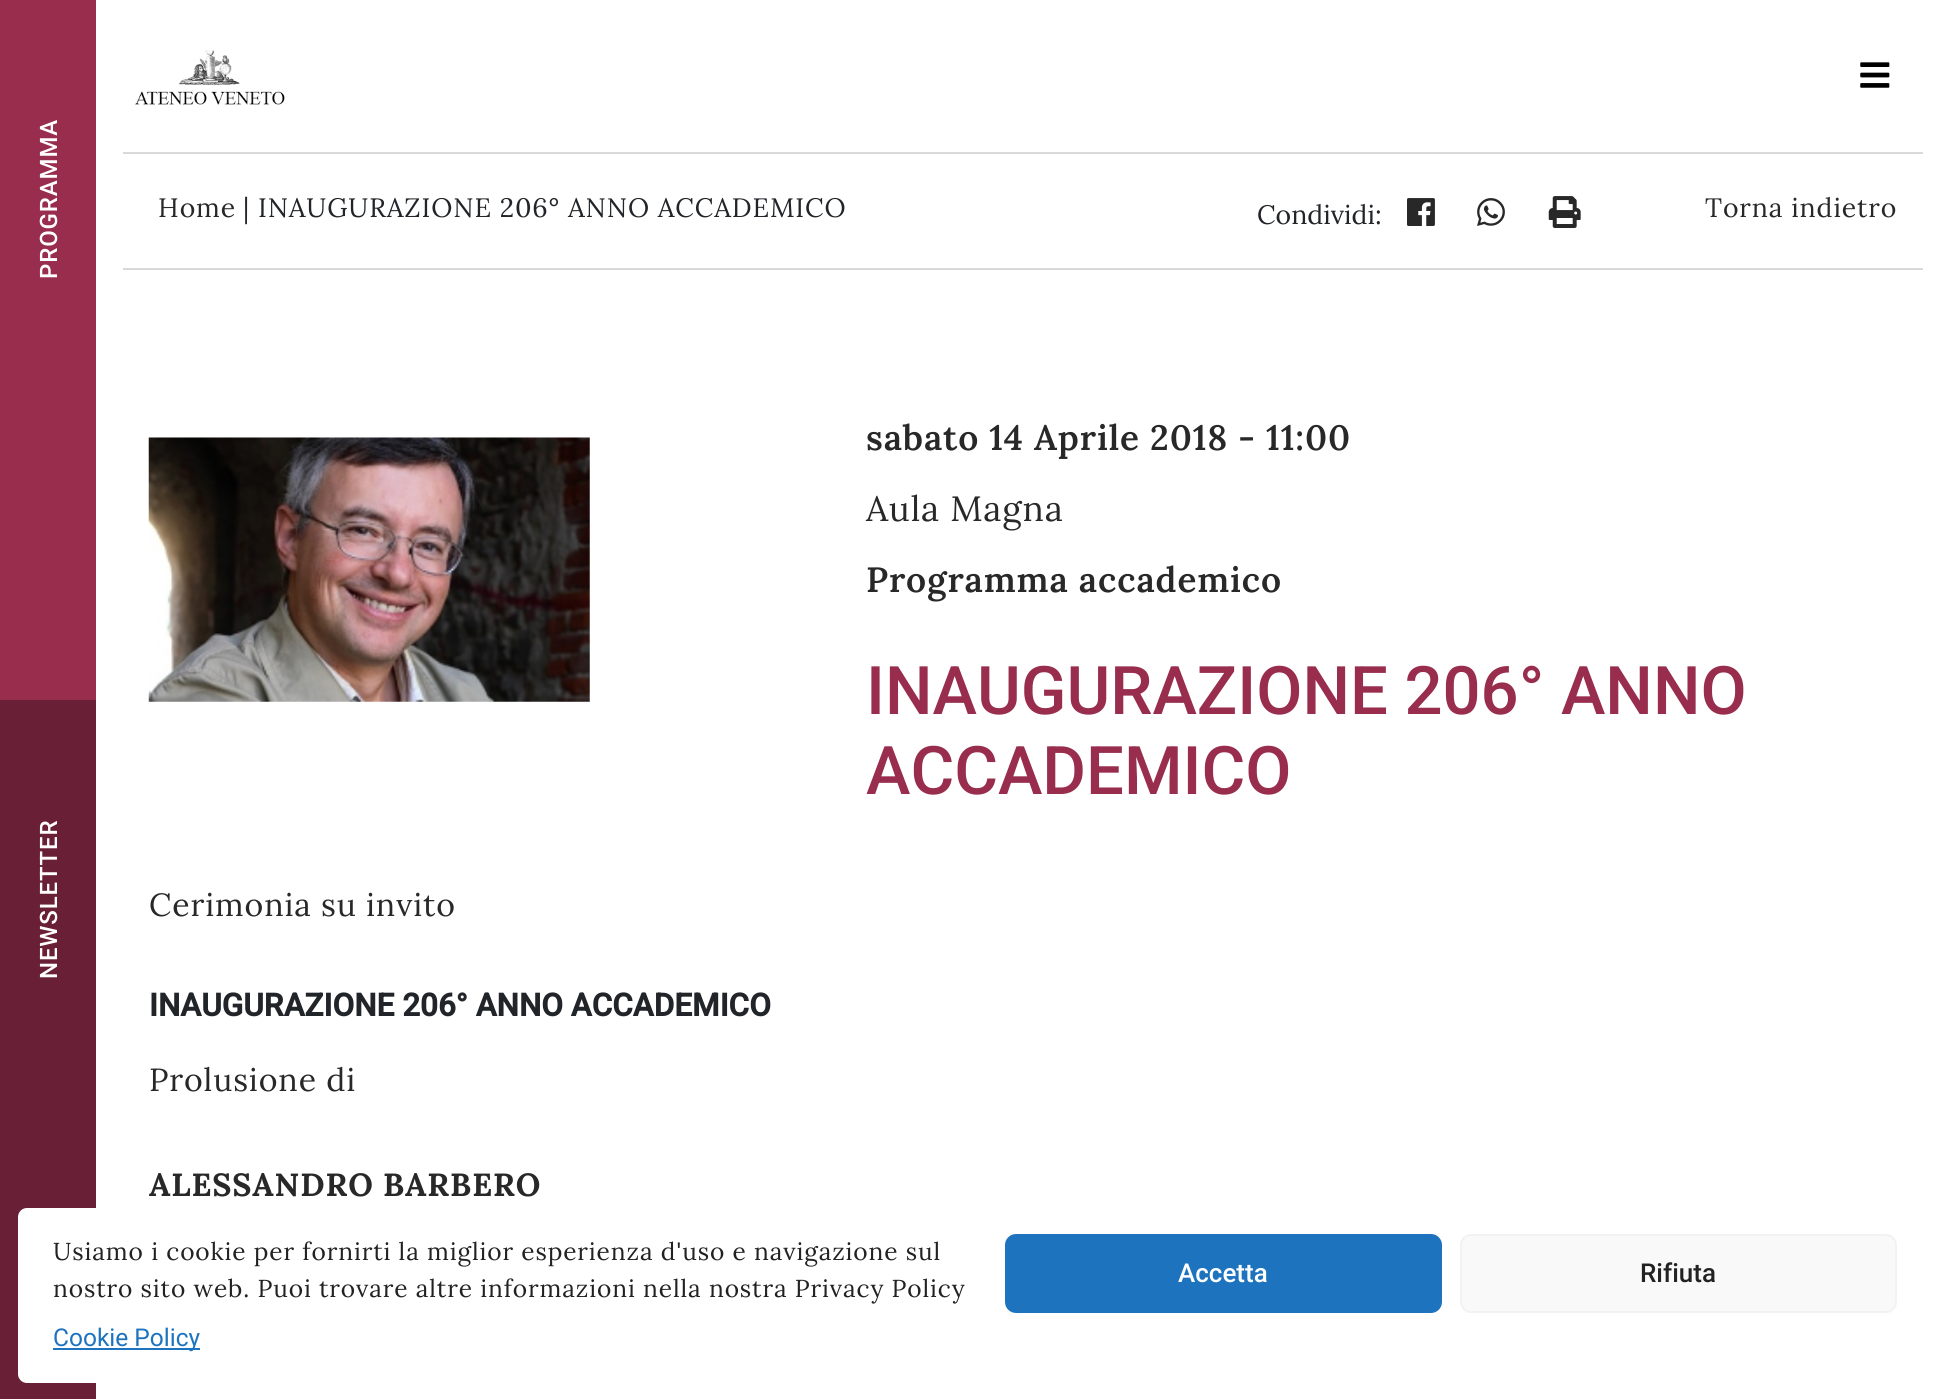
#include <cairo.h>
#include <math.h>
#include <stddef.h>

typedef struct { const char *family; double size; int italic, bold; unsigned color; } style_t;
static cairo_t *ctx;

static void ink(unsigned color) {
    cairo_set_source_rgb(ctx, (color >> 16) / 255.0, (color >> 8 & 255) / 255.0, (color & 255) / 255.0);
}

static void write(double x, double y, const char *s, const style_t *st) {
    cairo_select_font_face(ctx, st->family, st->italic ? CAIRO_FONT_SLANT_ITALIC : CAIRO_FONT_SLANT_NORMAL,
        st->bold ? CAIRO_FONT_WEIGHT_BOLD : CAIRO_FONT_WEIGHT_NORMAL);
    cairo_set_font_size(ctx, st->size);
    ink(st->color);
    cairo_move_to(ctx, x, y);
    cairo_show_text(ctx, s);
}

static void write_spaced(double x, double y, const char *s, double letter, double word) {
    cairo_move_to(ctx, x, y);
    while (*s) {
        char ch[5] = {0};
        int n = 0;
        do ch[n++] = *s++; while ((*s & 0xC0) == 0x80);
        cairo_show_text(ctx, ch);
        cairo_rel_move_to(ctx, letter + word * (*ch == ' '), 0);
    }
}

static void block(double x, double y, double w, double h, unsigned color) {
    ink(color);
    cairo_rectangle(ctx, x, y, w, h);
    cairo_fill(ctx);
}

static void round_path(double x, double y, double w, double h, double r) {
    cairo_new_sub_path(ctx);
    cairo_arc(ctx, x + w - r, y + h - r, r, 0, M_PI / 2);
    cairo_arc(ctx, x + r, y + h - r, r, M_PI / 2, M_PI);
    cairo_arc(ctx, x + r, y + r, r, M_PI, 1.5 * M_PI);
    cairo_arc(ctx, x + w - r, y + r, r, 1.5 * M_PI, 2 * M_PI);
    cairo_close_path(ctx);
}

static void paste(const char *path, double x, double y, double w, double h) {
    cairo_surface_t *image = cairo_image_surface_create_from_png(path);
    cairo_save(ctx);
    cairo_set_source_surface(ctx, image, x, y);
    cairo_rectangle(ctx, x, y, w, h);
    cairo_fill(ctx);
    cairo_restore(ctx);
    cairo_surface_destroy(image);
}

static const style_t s1 = {"Lora", 26.6, 0, 0, 0x212529};
static const style_t s2 = {"Roboto Medium", 67, 0, 0, 0x982d4d};
static const style_t s3 = {"Roboto", 31.5, 0, 1, 0x212529};
static const style_t s4 = {"Roboto Medium", 26, 0, 0, 0xffffff};
static const style_t s5 = {"Roboto Medium", 26, 0, 0, 0x222222};
static const style_t s6 = {"Roboto", 24.5, 0, 0, 0x1e73be};

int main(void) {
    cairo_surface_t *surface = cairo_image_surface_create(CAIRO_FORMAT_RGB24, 1949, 1399);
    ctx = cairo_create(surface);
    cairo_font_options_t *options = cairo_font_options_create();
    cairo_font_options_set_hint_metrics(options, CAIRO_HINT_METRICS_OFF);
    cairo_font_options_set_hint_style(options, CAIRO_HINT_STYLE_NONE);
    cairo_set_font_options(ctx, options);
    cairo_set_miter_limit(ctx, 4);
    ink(0xffffff);
    cairo_paint(ctx);
    block(0, 0, 96, 700, 0x982d4d);
    cairo_select_font_face(ctx, "Roboto Medium", CAIRO_FONT_SLANT_NORMAL, CAIRO_FONT_WEIGHT_NORMAL);
    cairo_set_font_size(ctx, 24);
    ink(0xffffff);
    cairo_save(ctx);
    cairo_translate(ctx, 57, 279);
    cairo_rotate(ctx, -90 * M_PI / 180);
    write_spaced(0, 0, "PROGRAMMA", 0.88, 0);
    cairo_restore(ctx);
    block(0, 700, 96, 699, 0x691f35);
    ink(0xffffff);
    cairo_save(ctx);
    cairo_translate(ctx, 57, 979);
    cairo_rotate(ctx, -90 * M_PI / 180);
    write_spaced(0, 0, "NEWSLETTER", 0.88, 0);
    cairo_restore(ctx);
    paste("pic1.png", 134, 50, 151, 55);
    paste("pic2.png", 1860, 62, 30, 26);
    block(123, 152, 1800, 2, 0xd9d9d9);
    block(123, 268, 1800, 2, 0xd9d9d9);
    cairo_select_font_face(ctx, "Lora", CAIRO_FONT_SLANT_NORMAL, CAIRO_FONT_WEIGHT_NORMAL);
    cairo_set_font_size(ctx, 26.6);
    ink(0x282828);
    write_spaced(158, 217, "Home", 0.88, 0);
    ink(0x212529);
    write_spaced(243, 217, "| INAUGURAZIONE 206° ANNO ACCADEMICO", 0.88, 0);
    write(1257, 224, "Condividi:", &s1);
    paste("pic3.png", 1407, 198, 28, 28);
    paste("pic4.png", 1477, 198, 28, 28);
    paste("pic5.png", 1548, 196, 33, 32);
    ink(0x282828);
    write_spaced(1705, 217, "Torna indietro", 0.88, 0);
    cairo_select_font_face(ctx, "Lora SemiBold", CAIRO_FONT_SLANT_NORMAL, CAIRO_FONT_WEIGHT_NORMAL);
    cairo_set_font_size(ctx, 35.1);
    write_spaced(866, 450, "sabato 14 Aprile 2018 - 11:00", 0.88, 0);
    cairo_select_font_face(ctx, "Lora", CAIRO_FONT_SLANT_NORMAL, CAIRO_FONT_WEIGHT_NORMAL);
    write_spaced(866, 521, "Aula Magna", 0.88, 0);
    cairo_select_font_face(ctx, "Lora SemiBold", CAIRO_FONT_SLANT_NORMAL, CAIRO_FONT_WEIGHT_NORMAL);
    write_spaced(866, 592, "Programma accademico", 0.88, 0);
    write(866, 714, "INAUGURAZIONE 206° ANNO", &s2);
    write(866, 794, "ACCADEMICO", &s2);
    cairo_select_font_face(ctx, "Lora", CAIRO_FONT_SLANT_NORMAL, CAIRO_FONT_WEIGHT_NORMAL);
    cairo_set_font_size(ctx, 32);
    ink(0x282828);
    write_spaced(149, 916, "Cerimonia su invito", 0.88, 0);
    write(149, 1016, "INAUGURAZIONE 206° ANNO ACCADEMICO", &s3);
    cairo_select_font_face(ctx, "Lora", CAIRO_FONT_SLANT_NORMAL, CAIRO_FONT_WEIGHT_NORMAL);
    cairo_set_font_size(ctx, 32);
    ink(0x282828);
    write_spaced(149, 1091, "Prolusione di", 0.88, 0);
    cairo_select_font_face(ctx, "Lora", CAIRO_FONT_SLANT_NORMAL, CAIRO_FONT_WEIGHT_BOLD);
    write_spaced(149, 1196, "ALESSANDRO BARBERO", 0.88, 0);
    paste("pic6.png", 148, 437, 442, 265);
    ink(0xffffff);
    round_path(18, 1208, 1914, 175, 9);
    cairo_fill(ctx);
    cairo_select_font_face(ctx, "Lora", CAIRO_FONT_SLANT_NORMAL, CAIRO_FONT_WEIGHT_NORMAL);
    cairo_set_font_size(ctx, 24.5);
    ink(0x222222);
    write_spaced(53, 1260, "Usiamo i cookie per fornirti la miglior esperienza d'uso e navigazione sul", 0.88, 0);
    write_spaced(53, 1297, "nostro sito web. Puoi trovare altre informazioni nella nostra Privacy Policy", 0.88, 0);
    ink(0x1e73be);
    round_path(1006, 1235, 435, 77, 10);
    cairo_fill_preserve(ctx);
    cairo_stroke(ctx);
    write(1178, 1282, "Accetta", &s4);
    ink(0xf9f9f9);
    round_path(1461, 1235, 435, 77, 10);
    cairo_fill_preserve(ctx);
    ink(0xf2f2f2);
    cairo_stroke(ctx);
    write(1640, 1282, "Rifiuta", &s5);
    block(53, 1348, 147, 2, 0x1e73be);
    write(53, 1346, "Cookie Policy", &s6);
    cairo_surface_write_to_png(surface, "screenshot.png");
    cairo_font_options_destroy(options);
    cairo_destroy(ctx);
    cairo_surface_destroy(surface);
    return 0;
}
